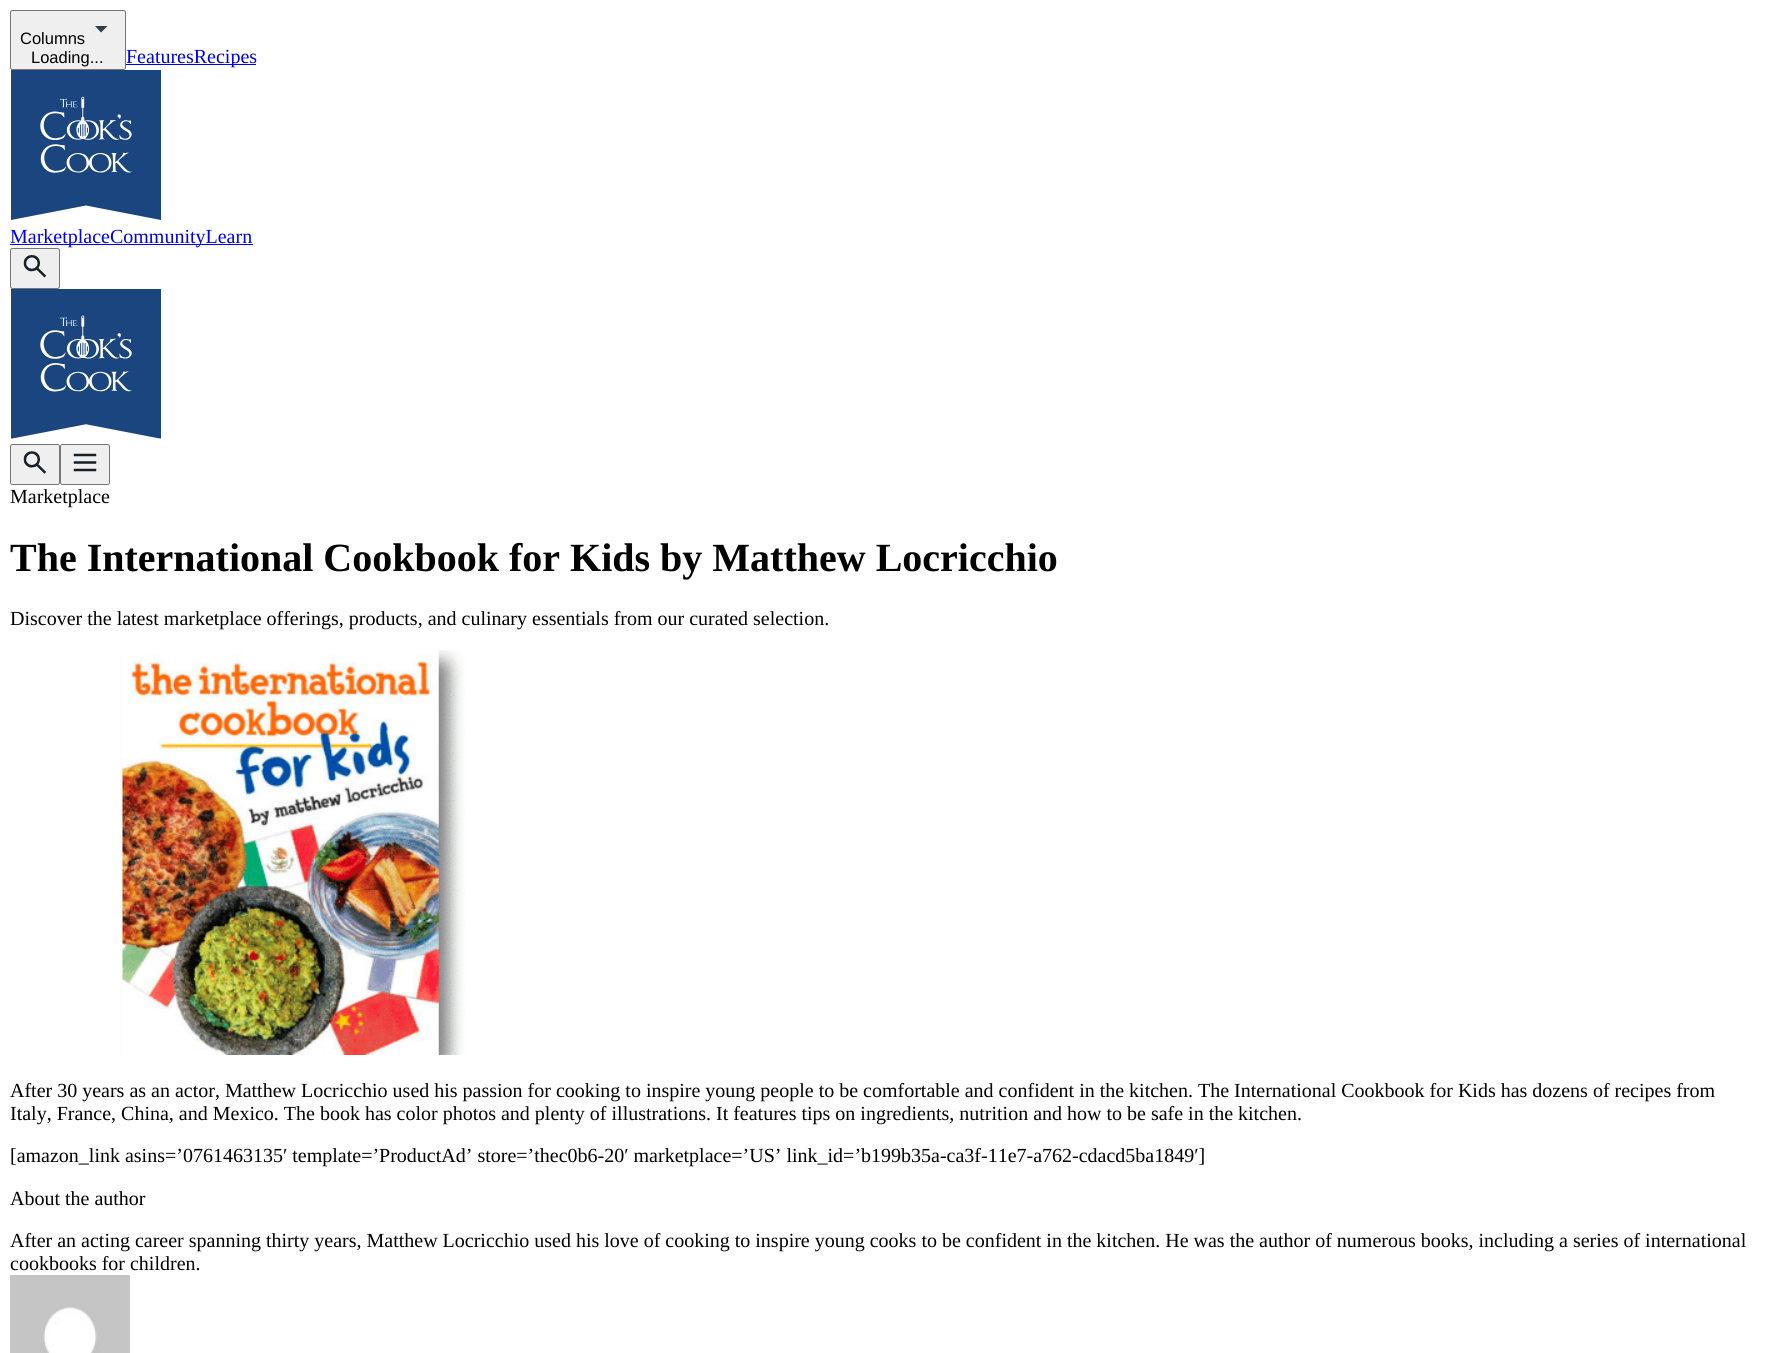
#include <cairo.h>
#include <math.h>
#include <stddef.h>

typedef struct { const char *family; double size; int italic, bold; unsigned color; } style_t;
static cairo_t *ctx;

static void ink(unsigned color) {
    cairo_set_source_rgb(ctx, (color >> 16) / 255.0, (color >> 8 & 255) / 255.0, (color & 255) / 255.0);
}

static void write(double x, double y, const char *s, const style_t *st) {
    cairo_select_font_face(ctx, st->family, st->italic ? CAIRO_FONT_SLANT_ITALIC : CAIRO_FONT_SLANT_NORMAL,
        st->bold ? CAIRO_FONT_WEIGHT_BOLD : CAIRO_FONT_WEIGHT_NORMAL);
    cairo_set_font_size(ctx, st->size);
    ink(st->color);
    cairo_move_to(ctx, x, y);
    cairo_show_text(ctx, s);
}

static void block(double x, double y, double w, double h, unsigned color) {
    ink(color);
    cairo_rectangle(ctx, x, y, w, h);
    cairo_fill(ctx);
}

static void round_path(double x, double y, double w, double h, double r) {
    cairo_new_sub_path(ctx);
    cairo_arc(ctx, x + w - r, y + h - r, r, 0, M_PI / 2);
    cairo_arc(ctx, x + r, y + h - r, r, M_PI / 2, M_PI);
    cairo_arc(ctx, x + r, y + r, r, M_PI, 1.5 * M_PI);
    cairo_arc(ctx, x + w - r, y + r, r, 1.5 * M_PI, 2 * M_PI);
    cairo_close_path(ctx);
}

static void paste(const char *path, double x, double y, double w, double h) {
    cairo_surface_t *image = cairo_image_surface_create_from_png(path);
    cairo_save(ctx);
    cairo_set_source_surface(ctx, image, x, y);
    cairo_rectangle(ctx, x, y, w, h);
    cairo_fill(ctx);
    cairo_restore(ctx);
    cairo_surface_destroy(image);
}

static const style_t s1 = {"Liberation Sans", 16.5, 0, 0, 0x000000};
static const style_t s2 = {"Liberation Serif", 20, 0, 0, 0x0000ee};
static const style_t s3 = {"Liberation Serif", 20, 0, 0, 0x000000};
static const style_t s4 = {"Liberation Serif", 40, 0, 1, 0x000000};

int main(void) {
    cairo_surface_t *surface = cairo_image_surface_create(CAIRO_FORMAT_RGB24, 1769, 1353);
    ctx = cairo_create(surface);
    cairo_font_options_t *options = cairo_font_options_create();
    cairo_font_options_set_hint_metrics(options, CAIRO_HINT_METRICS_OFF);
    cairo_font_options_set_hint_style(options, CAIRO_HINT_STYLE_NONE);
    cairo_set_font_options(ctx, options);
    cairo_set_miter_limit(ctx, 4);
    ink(0xffffff);
    cairo_paint(ctx);
    ink(0xefefef);
    round_path(10.5, 10.5, 115, 59, 2);
    cairo_fill_preserve(ctx);
    ink(0x767676);
    cairo_set_line_width(ctx, 1);
    cairo_stroke(ctx);
    ink(0x313e48);
    cairo_new_path(ctx);
    cairo_move_to(ctx, 101, 32.5);
    cairo_line_to(ctx, 95, 26);
    cairo_line_to(ctx, 107.5, 26);
    cairo_close_path(ctx);
    cairo_fill(ctx);
    write(20, 44, "Columns", &s1);
    write(31, 63, "Loading...", &s1);
    block(126, 64, 130, 1, 0x0000ee);
    write(126, 63, "FeaturesRecipes", &s2);
    paste("pic1.png", 11, 70, 150, 150);
    block(10, 244, 195, 1, 0x0000ee);
    write(10, 243, "MarketplaceCommunityLearn", &s2);
    block(205, 244, 48, 1, 0x0000ee);
    ink(0xefefef);
    round_path(10.5, 248.5, 49, 40, 2);
    cairo_fill_preserve(ctx);
    ink(0x767676);
    cairo_stroke(ctx);
    paste("pic2.png", 23, 255, 24, 23);
    paste("pic3.png", 11, 289, 150, 150);
    ink(0xefefef);
    round_path(10.5, 444.5, 49, 40, 2);
    cairo_fill_preserve(ctx);
    ink(0x767676);
    cairo_stroke(ctx);
    paste("pic4.png", 23, 451, 24, 23);
    ink(0xefefef);
    round_path(60.5, 444.5, 49, 40, 2);
    cairo_fill_preserve(ctx);
    ink(0x767676);
    cairo_stroke(ctx);
    paste("pic5.png", 73, 453, 24, 19);
    write(10, 503, "Marketplace", &s3);
    write(10, 571, "The International Cookbook for Kids by Matthew Locricchio", &s4);
    write(10, 625, "Discover the latest marketplace offerings, products, and culinary essentials from our curated selection.", &s3);
    paste("pic6.png", 120, 650, 345, 405);
    write(10, 1097, "After 30 years as an actor, Matthew Locricchio used his passion for cooking to inspire young people to be comfortable and confident in the kitchen. The International Cookbook for Kids has dozens of recipes from", &s3);
    write(10, 1120, "Italy, France, China, and Mexico. The book has color photos and plenty of illustrations. It features tips on ingredients, nutrition and how to be safe in the kitchen.", &s3);
    write(10, 1162, "[amazon_link asins=’0761463135′ template=’ProductAd’ store=’thec0b6-20′ marketplace=’US’ link_id=’b199b35a-ca3f-11e7-a762-cdacd5ba1849′]", &s3);
    write(10, 1205, "About the author", &s3);
    write(10, 1247, "After an acting career spanning thirty years, Matthew Locricchio used his love of cooking to inspire young cooks to be confident in the kitchen. He was the author of numerous books, including a series of international", &s3);
    write(10, 1270, "cookbooks for children.", &s3);
    paste("pic7.png", 10, 1275, 120, 78);
    cairo_surface_write_to_png(surface, "screenshot.png");
    cairo_font_options_destroy(options);
    cairo_destroy(ctx);
    cairo_surface_destroy(surface);
    return 0;
}
